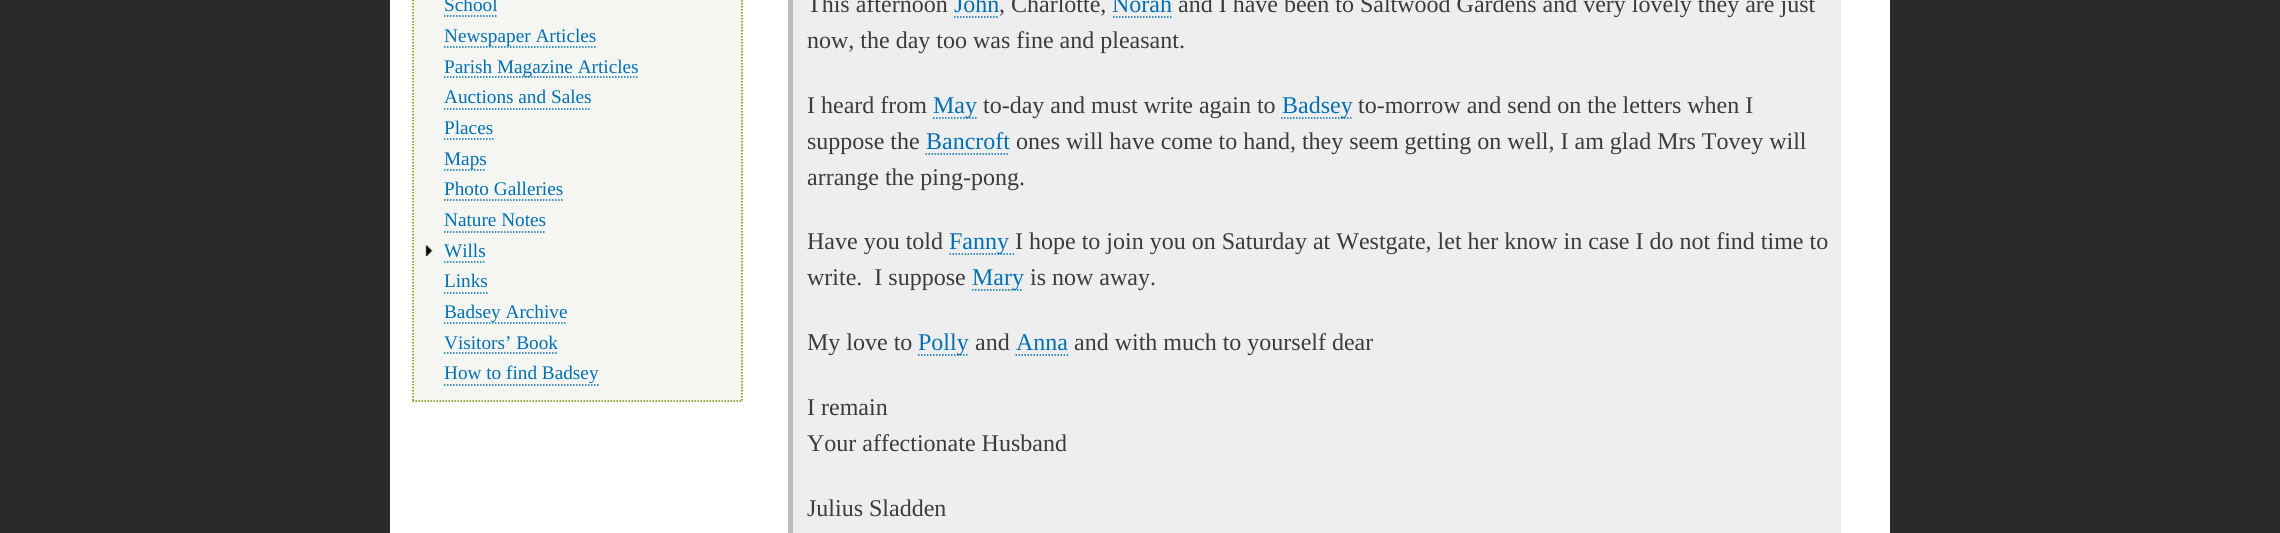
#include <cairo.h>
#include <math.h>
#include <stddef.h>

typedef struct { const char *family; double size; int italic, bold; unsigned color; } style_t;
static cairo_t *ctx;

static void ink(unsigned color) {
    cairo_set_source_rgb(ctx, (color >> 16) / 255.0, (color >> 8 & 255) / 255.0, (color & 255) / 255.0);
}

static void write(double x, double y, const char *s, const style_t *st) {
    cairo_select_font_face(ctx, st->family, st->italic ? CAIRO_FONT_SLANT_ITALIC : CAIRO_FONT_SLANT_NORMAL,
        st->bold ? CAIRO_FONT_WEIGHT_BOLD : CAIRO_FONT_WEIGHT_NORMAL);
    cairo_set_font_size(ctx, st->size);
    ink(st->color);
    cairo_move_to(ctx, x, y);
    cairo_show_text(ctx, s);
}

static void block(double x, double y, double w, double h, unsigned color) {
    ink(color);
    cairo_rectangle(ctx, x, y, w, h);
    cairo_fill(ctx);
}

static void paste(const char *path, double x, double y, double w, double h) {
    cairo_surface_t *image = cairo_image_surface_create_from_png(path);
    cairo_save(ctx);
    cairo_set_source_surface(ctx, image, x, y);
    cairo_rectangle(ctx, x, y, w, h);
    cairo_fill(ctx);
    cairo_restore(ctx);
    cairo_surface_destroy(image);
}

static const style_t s1 = {"Liberation Serif", 19.25, 0, 0, 0x0070b3};
static const style_t s2 = {"Liberation Serif", 24, 0, 0, 0x3b3b3b};
static const style_t s3 = {"Liberation Serif", 24, 0, 0, 0x0070b3};

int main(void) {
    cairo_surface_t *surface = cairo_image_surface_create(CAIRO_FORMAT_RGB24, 2280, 533);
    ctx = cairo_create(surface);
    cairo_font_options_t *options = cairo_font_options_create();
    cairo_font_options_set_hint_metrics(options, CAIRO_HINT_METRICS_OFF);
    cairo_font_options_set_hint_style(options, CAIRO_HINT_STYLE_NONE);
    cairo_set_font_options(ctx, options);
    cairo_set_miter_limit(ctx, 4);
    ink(0x292929);
    cairo_paint(ctx);
    block(390, 0, 1500, 533, 0xffffff);
    block(413, 0, 330, 402, 0xf5f5f2);
    cairo_new_path(ctx);
    cairo_move_to(ctx, 742, -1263);
    cairo_line_to(ctx, 742, 402);
    ink(0x788e05);
    cairo_set_line_width(ctx, 1.5);
    cairo_set_dash(ctx, (double[]){1.5, 1.5}, 2, 0);
    cairo_stroke(ctx);
    cairo_new_path(ctx);
    cairo_move_to(ctx, 412.5, 401);
    cairo_line_to(ctx, 742.5, 401);
    cairo_stroke(ctx);
    cairo_new_path(ctx);
    cairo_move_to(ctx, 413, -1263);
    cairo_line_to(ctx, 413, 402);
    cairo_stroke(ctx);
    write(444, 11, "School", &s1);
    cairo_new_path(ctx);
    cairo_move_to(ctx, 444, 16);
    cairo_line_to(ctx, 498, 16);
    cairo_stroke(ctx);
    cairo_new_path(ctx);
    cairo_move_to(ctx, 444, 47);
    cairo_line_to(ctx, 595.5, 47);
    cairo_stroke(ctx);
    write(444, 42, "Newspaper Articles", &s1);
    cairo_new_path(ctx);
    cairo_move_to(ctx, 444, 77);
    cairo_line_to(ctx, 637.5, 77);
    cairo_stroke(ctx);
    write(444, 73, "Parish Magazine Articles", &s1);
    write(444, 103, "Auctions and Sales", &s1);
    cairo_new_path(ctx);
    cairo_move_to(ctx, 444, 109);
    cairo_line_to(ctx, 591, 109);
    cairo_stroke(ctx);
    write(444, 134, "Places", &s1);
    cairo_new_path(ctx);
    cairo_move_to(ctx, 444, 139);
    cairo_line_to(ctx, 493.5, 139);
    cairo_stroke(ctx);
    cairo_new_path(ctx);
    cairo_move_to(ctx, 444, 170);
    cairo_line_to(ctx, 486, 170);
    cairo_stroke(ctx);
    write(444, 165, "Maps", &s1);
    write(444, 195, "Photo Galleries", &s1);
    cairo_new_path(ctx);
    cairo_move_to(ctx, 444, 200);
    cairo_line_to(ctx, 562.5, 200);
    cairo_stroke(ctx);
    write(444, 226, "Nature Notes", &s1);
    cairo_new_path(ctx);
    cairo_move_to(ctx, 444, 232);
    cairo_line_to(ctx, 546, 232);
    cairo_stroke(ctx);
    paste("pic1.png", 425, 245, 8, 11);
    write(444, 257, "Wills", &s1);
    cairo_new_path(ctx);
    cairo_move_to(ctx, 444, 262);
    cairo_line_to(ctx, 486, 262);
    cairo_stroke(ctx);
    write(444, 287, "Links", &s1);
    cairo_new_path(ctx);
    cairo_move_to(ctx, 444, 293);
    cairo_line_to(ctx, 487.5, 293);
    cairo_stroke(ctx);
    cairo_new_path(ctx);
    cairo_move_to(ctx, 444, 323);
    cairo_line_to(ctx, 567, 323);
    cairo_stroke(ctx);
    write(444, 318, "Badsey Archive", &s1);
    write(444, 349, "Visitors’ Book", &s1);
    cairo_new_path(ctx);
    cairo_move_to(ctx, 444, 353);
    cairo_line_to(ctx, 558, 353);
    cairo_stroke(ctx);
    write(444, 379, "How to find Badsey", &s1);
    cairo_new_path(ctx);
    cairo_move_to(ctx, 444, 385);
    cairo_line_to(ctx, 598.5, 385);
    cairo_stroke(ctx);
    block(793, 0, 1048, 533, 0xeeeeee);
    block(788, 0, 5, 533, 0xbbbbbb);
    write(807, 12, "This afternoon", &s2);
    write(954, 12, "John", &s3);
    cairo_new_path(ctx);
    cairo_move_to(ctx, 954, 17);
    cairo_line_to(ctx, 999, 17);
    cairo_stroke(ctx);
    write(999, 12, ", Charlotte,", &s2);
    write(1112, 12, "Norah", &s3);
    cairo_new_path(ctx);
    cairo_move_to(ctx, 1113, 17);
    cairo_line_to(ctx, 1173, 17);
    cairo_stroke(ctx);
    write(1178, 12, "and I have been to Saltwood Gardens and very lovely they are just", &s2);
    write(807, 48, "now, the day too was fine and pleasant.", &s2);
    write(807, 113, "I heard from", &s2);
    cairo_new_path(ctx);
    cairo_move_to(ctx, 933, 118);
    cairo_line_to(ctx, 976.5, 118);
    ink(0x0070b3);
    cairo_stroke(ctx);
    write(933, 113, "May", &s3);
    write(983, 113, "to-day and must write again to", &s2);
    cairo_new_path(ctx);
    cairo_move_to(ctx, 1281, 118);
    cairo_line_to(ctx, 1351.5, 118);
    ink(0x0070b3);
    cairo_stroke(ctx);
    write(1282, 113, "Badsey", &s3);
    write(1358, 113, "to-morrow and send on the letters when I", &s2);
    write(807, 149, "suppose the", &s2);
    write(926, 149, "Bancroft", &s3);
    cairo_new_path(ctx);
    cairo_move_to(ctx, 925.5, 154);
    cairo_line_to(ctx, 1009.5, 154);
    cairo_stroke(ctx);
    write(1016, 149, "ones will have come to hand, they seem getting on well, I am glad Mrs Tovey will", &s2);
    write(807, 185, "arrange the ping-pong.", &s2);
    write(807, 249, "Have you told", &s2);
    cairo_new_path(ctx);
    cairo_move_to(ctx, 949.5, 254);
    cairo_line_to(ctx, 1015.5, 254);
    ink(0x0070b3);
    cairo_stroke(ctx);
    write(949, 249, "Fanny", &s3);
    write(1015, 249, "I hope to join you on Saturday at Westgate, let her know in case I do not find time to", &s2);
    write(807, 285, "write.  I suppose", &s2);
    cairo_new_path(ctx);
    cairo_move_to(ctx, 972, 290);
    cairo_line_to(ctx, 1023, 290);
    ink(0x0070b3);
    cairo_stroke(ctx);
    write(972, 285, "Mary", &s3);
    write(1030, 285, "is now away.", &s2);
    write(807, 350, "My love to", &s2);
    cairo_new_path(ctx);
    cairo_move_to(ctx, 918, 355);
    cairo_line_to(ctx, 969, 355);
    ink(0x0070b3);
    cairo_stroke(ctx);
    write(918, 350, "Polly", &s3);
    write(975, 350, "and", &s2);
    write(1016, 350, "Anna", &s3);
    cairo_new_path(ctx);
    cairo_move_to(ctx, 1015.5, 355);
    cairo_line_to(ctx, 1068, 355);
    cairo_stroke(ctx);
    write(1074, 350, "and with much to yourself dear", &s2);
    write(807, 415, "I remain", &s2);
    write(807, 451, "Your affectionate Husband", &s2);
    write(807, 516, "Julius Sladden", &s2);
    cairo_surface_write_to_png(surface, "screenshot.png");
    cairo_font_options_destroy(options);
    cairo_destroy(ctx);
    cairo_surface_destroy(surface);
    return 0;
}
